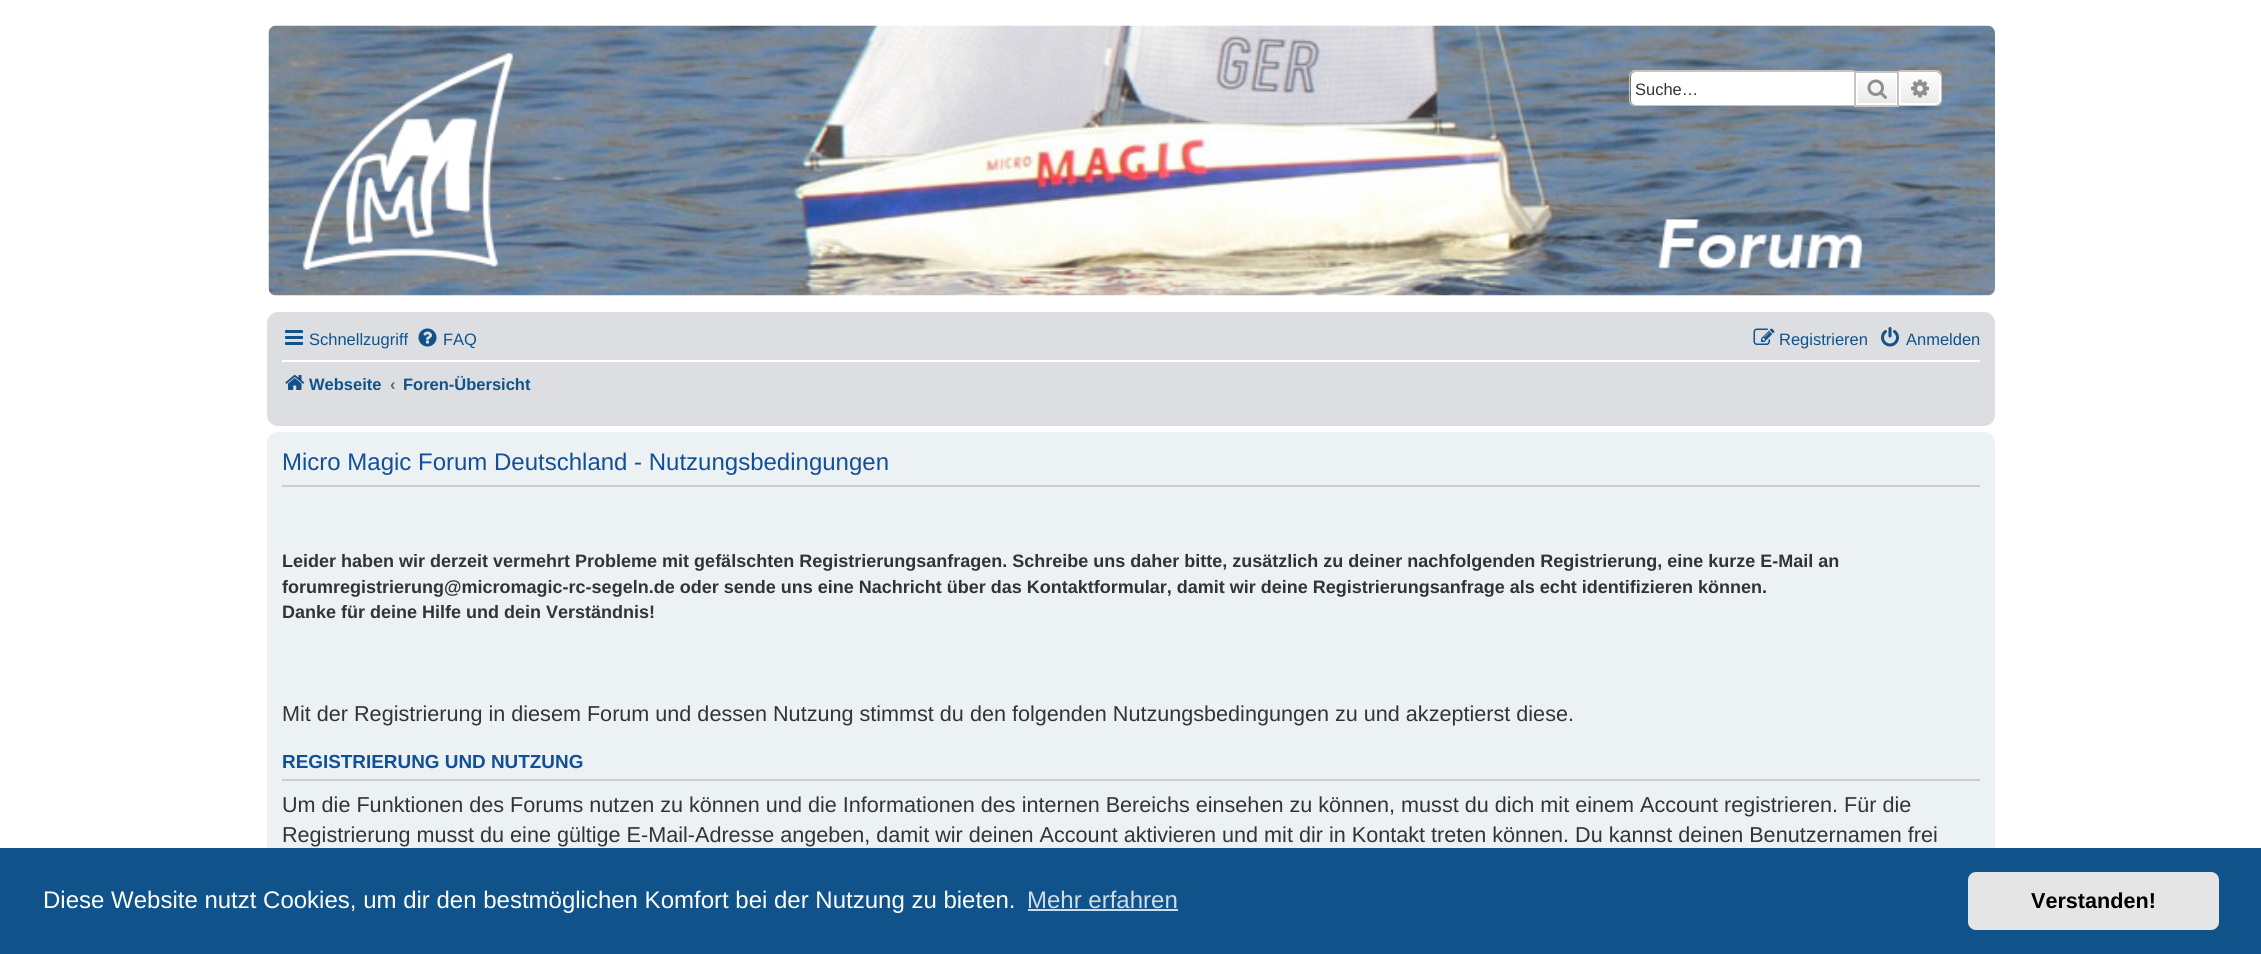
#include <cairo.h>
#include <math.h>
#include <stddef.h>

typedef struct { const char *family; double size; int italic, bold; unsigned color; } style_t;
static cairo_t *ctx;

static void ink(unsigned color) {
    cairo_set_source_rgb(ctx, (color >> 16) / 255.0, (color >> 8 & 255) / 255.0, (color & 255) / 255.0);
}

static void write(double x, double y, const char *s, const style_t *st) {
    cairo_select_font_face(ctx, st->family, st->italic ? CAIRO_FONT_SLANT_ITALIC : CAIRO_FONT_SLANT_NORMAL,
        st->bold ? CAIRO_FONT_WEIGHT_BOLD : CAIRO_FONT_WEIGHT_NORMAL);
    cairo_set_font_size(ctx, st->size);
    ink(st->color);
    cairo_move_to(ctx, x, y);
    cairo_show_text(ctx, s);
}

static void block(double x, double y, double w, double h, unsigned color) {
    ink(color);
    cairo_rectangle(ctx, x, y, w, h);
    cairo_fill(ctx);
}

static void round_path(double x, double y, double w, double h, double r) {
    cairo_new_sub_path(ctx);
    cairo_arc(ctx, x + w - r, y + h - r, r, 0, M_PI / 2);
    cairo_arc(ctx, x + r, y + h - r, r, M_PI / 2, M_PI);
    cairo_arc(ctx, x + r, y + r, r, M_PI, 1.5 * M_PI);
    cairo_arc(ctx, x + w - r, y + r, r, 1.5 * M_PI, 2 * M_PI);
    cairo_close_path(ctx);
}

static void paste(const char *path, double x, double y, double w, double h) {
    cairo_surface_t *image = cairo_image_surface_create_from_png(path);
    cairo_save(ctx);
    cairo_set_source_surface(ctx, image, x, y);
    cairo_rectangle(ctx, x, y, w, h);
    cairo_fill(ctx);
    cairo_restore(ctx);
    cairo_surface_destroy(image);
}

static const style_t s1 = {"Liberation Sans", 16.5, 0, 0, 0x333333};
static const style_t s2 = {"Liberation Sans", 16.5, 0, 0, 0x105289};
static const style_t s3 = {"Liberation Sans", 16.5, 0, 1, 0x105289};
static const style_t s4 = {"Liberation Sans", 16.5, 0, 1, 0x536482};
static const style_t s5 = {"Liberation Sans", 24, 0, 0, 0x115098};
static const style_t s6 = {"Liberation Sans", 18, 0, 1, 0x333333};
static const style_t s7 = {"Liberation Sans", 21.6, 0, 0, 0x333333};
static const style_t s8 = {"Liberation Sans", 18.9, 0, 1, 0x115098};
static const style_t s9 = {"Liberation Sans", 24, 0, 0, 0xffffff};
static const style_t s10 = {"Liberation Sans", 24, 0, 0, 0xcfdde8};
static const style_t s11 = {"Liberation Sans", 21.6, 0, 1, 0x000000};

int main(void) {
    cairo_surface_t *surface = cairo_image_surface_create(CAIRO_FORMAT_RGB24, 2261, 954);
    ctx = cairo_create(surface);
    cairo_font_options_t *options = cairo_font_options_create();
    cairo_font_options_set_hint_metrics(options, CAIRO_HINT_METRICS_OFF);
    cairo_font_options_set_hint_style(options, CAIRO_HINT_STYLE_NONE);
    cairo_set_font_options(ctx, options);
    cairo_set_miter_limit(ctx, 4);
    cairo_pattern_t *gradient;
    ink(0xffffff);
    cairo_paint(ctx);
    paste("pic1.png", 268, 25, 1727, 271);
    ink(0xffffff);
    cairo_new_path(ctx);
    cairo_move_to(ctx, 1636, 72);
    cairo_line_to(ctx, 1854, 72);
    cairo_line_to(ctx, 1854, 105);
    cairo_line_to(ctx, 1636, 105);
    cairo_curve_to(ctx, 1633, 105, 1631, 103, 1631, 100);
    cairo_line_to(ctx, 1631, 77);
    cairo_curve_to(ctx, 1631, 74, 1633, 72, 1636, 72);
    cairo_close_path(ctx);
    cairo_fill(ctx);
    ink(0xc7c3bf);
    cairo_set_fill_rule(ctx, CAIRO_FILL_RULE_EVEN_ODD);
    cairo_new_path(ctx);
    cairo_move_to(ctx, 1635, 70);
    cairo_line_to(ctx, 1854, 70);
    cairo_line_to(ctx, 1854, 106);
    cairo_line_to(ctx, 1635, 106);
    cairo_curve_to(ctx, 1632, 106, 1629, 104, 1629, 100);
    cairo_line_to(ctx, 1629, 76);
    cairo_curve_to(ctx, 1629, 73, 1632, 70, 1635, 70);
    cairo_close_path(ctx);
    cairo_move_to(ctx, 1635, 72);
    cairo_line_to(ctx, 1854, 72);
    cairo_line_to(ctx, 1854, 105);
    cairo_line_to(ctx, 1635, 105);
    cairo_curve_to(ctx, 1633, 105, 1630, 103, 1630, 100);
    cairo_line_to(ctx, 1630, 76);
    cairo_curve_to(ctx, 1630, 74, 1633, 72, 1635, 72);
    cairo_close_path(ctx);
    cairo_fill(ctx);
    write(1635, 95, "Suche…", &s1);
    gradient = cairo_pattern_create_linear(1877, 72, 1877, 105);
    cairo_pattern_add_color_stop_rgba(gradient, 0, 1, 1, 1, 1);
    cairo_pattern_add_color_stop_rgba(gradient, 1, 0.914, 0.914, 0.914, 1);
    cairo_set_source(ctx, gradient);
    cairo_pattern_destroy(gradient);
    cairo_rectangle(ctx, 1858, 74, 38, 29);
    cairo_fill(ctx);
    cairo_rectangle(ctx, 1857, 73, 40, 31);
    ink(0xffffff);
    cairo_stroke(ctx);
    cairo_rectangle(ctx, 1855, 72, 43, 34);
    ink(0xc7c3bf);
    cairo_stroke(ctx);
    paste("pic2.png", 1867, 79, 20, 20);
    gradient = cairo_pattern_create_linear(1920, 72, 1920, 105);
    cairo_pattern_add_color_stop_rgba(gradient, 0, 1, 1, 1, 1);
    cairo_pattern_add_color_stop_rgba(gradient, 1, 0.914, 0.914, 0.914, 1);
    cairo_set_source(ctx, gradient);
    cairo_pattern_destroy(gradient);
    cairo_new_path(ctx);
    cairo_move_to(ctx, 1900, 73);
    cairo_line_to(ctx, 1936, 73);
    cairo_curve_to(ctx, 1938, 73, 1940, 75, 1940, 77);
    cairo_line_to(ctx, 1940, 100);
    cairo_curve_to(ctx, 1940, 102, 1938, 104, 1936, 104);
    cairo_line_to(ctx, 1900, 104);
    cairo_close_path(ctx);
    cairo_fill_preserve(ctx);
    ink(0xffffff);
    cairo_stroke(ctx);
    ink(0xc7c3bf);
    cairo_new_path(ctx);
    cairo_move_to(ctx, 1899, 70);
    cairo_line_to(ctx, 1936, 70);
    cairo_curve_to(ctx, 1940, 70, 1942, 73, 1942, 76);
    cairo_line_to(ctx, 1942, 100);
    cairo_curve_to(ctx, 1942, 104, 1940, 106, 1936, 106);
    cairo_line_to(ctx, 1899, 106);
    cairo_close_path(ctx);
    cairo_move_to(ctx, 1899, 72);
    cairo_line_to(ctx, 1936, 72);
    cairo_curve_to(ctx, 1939, 72, 1941, 74, 1941, 76);
    cairo_line_to(ctx, 1941, 100);
    cairo_curve_to(ctx, 1941, 103, 1939, 105, 1936, 105);
    cairo_line_to(ctx, 1899, 105);
    cairo_close_path(ctx);
    cairo_fill(ctx);
    paste("pic3.png", 1911, 79, 18, 19);
    ink(0xdcdee2);
    round_path(267, 312, 1728, 114, 11);
    cairo_fill(ctx);
    paste("pic4.png", 285, 330, 18, 15);
    write(309, 345, "Schnellzugriff", &s2);
    paste("pic5.png", 418, 328, 19, 19);
    write(443, 345, "FAQ", &s2);
    paste("pic6.png", 1753, 328, 22, 17);
    write(1779, 345, "Registrieren", &s2);
    paste("pic7.png", 1881, 327, 18, 20);
    write(1906, 345, "Anmelden", &s2);
    block(282, 360, 1698, 2, 0xffffff);
    paste("pic8.png", 285, 375, 20, 15);
    write(309, 390, "Webseite", &s3);
    write(390, 390, "‹", &s4);
    write(403, 390, "Foren-Übersicht", &s3);
    ink(0xecf1f3);
    round_path(267, 432, 1728, 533, 11);
    cairo_fill(ctx);
    block(282, 485, 1698, 2, 0xcccccc);
    write(282, 470, "Micro Magic Forum Deutschland - Nutzungsbedingungen", &s5);
    write(282, 567, "Leider haben wir derzeit vermehrt Probleme mit gefälschten Registrierungsanfragen. Schreibe uns daher bitte, zusätzlich zu deiner nachfolgenden Registrierung, eine kurze E-Mail an", &s6);
    write(282, 593, "forumregistrierung@micromagic-rc-segeln.de oder sende uns eine Nachricht über das Kontaktformular, damit wir deine Registrierungsanfrage als echt identifizieren können.", &s6);
    write(282, 618, "Danke für deine Hilfe und dein Verständnis!", &s6);
    write(282, 721, "Mit der Registrierung in diesem Forum und dessen Nutzung stimmst du den folgenden Nutzungsbedingungen zu und akzeptierst diese.", &s7);
    block(282, 779, 1698, 2, 0xcccccc);
    write(282, 768, "REGISTRIERUNG UND NUTZUNG", &s8);
    write(282, 812, "Um die Funktionen des Forums nutzen zu können und die Informationen des internen Bereichs einsehen zu können, musst du dich mit einem Account registrieren. Für die", &s7);
    write(282, 842, "Registrierung musst du eine gültige E-Mail-Adresse angeben, damit wir deinen Account aktivieren und mit dir in Kontakt treten können. Du kannst deinen Benutzernamen frei", &s7);
    block(0, 848, 2261, 106, 0x0f538a);
    write(43, 908, "Diese Website nutzt Cookies, um dir den bestmöglichen Komfort bei der Nutzung zu bieten.", &s9);
    write(1027, 908, "Mehr erfahren", &s10);
    block(1028, 909, 150, 2, 0xcfdde8);
    ink(0xe5e5e5);
    round_path(1968, 872, 251, 58, 8);
    cairo_fill(ctx);
    write(2031, 908, "Verstanden!", &s11);
    cairo_surface_write_to_png(surface, "screenshot.png");
    cairo_font_options_destroy(options);
    cairo_destroy(ctx);
    cairo_surface_destroy(surface);
    return 0;
}
